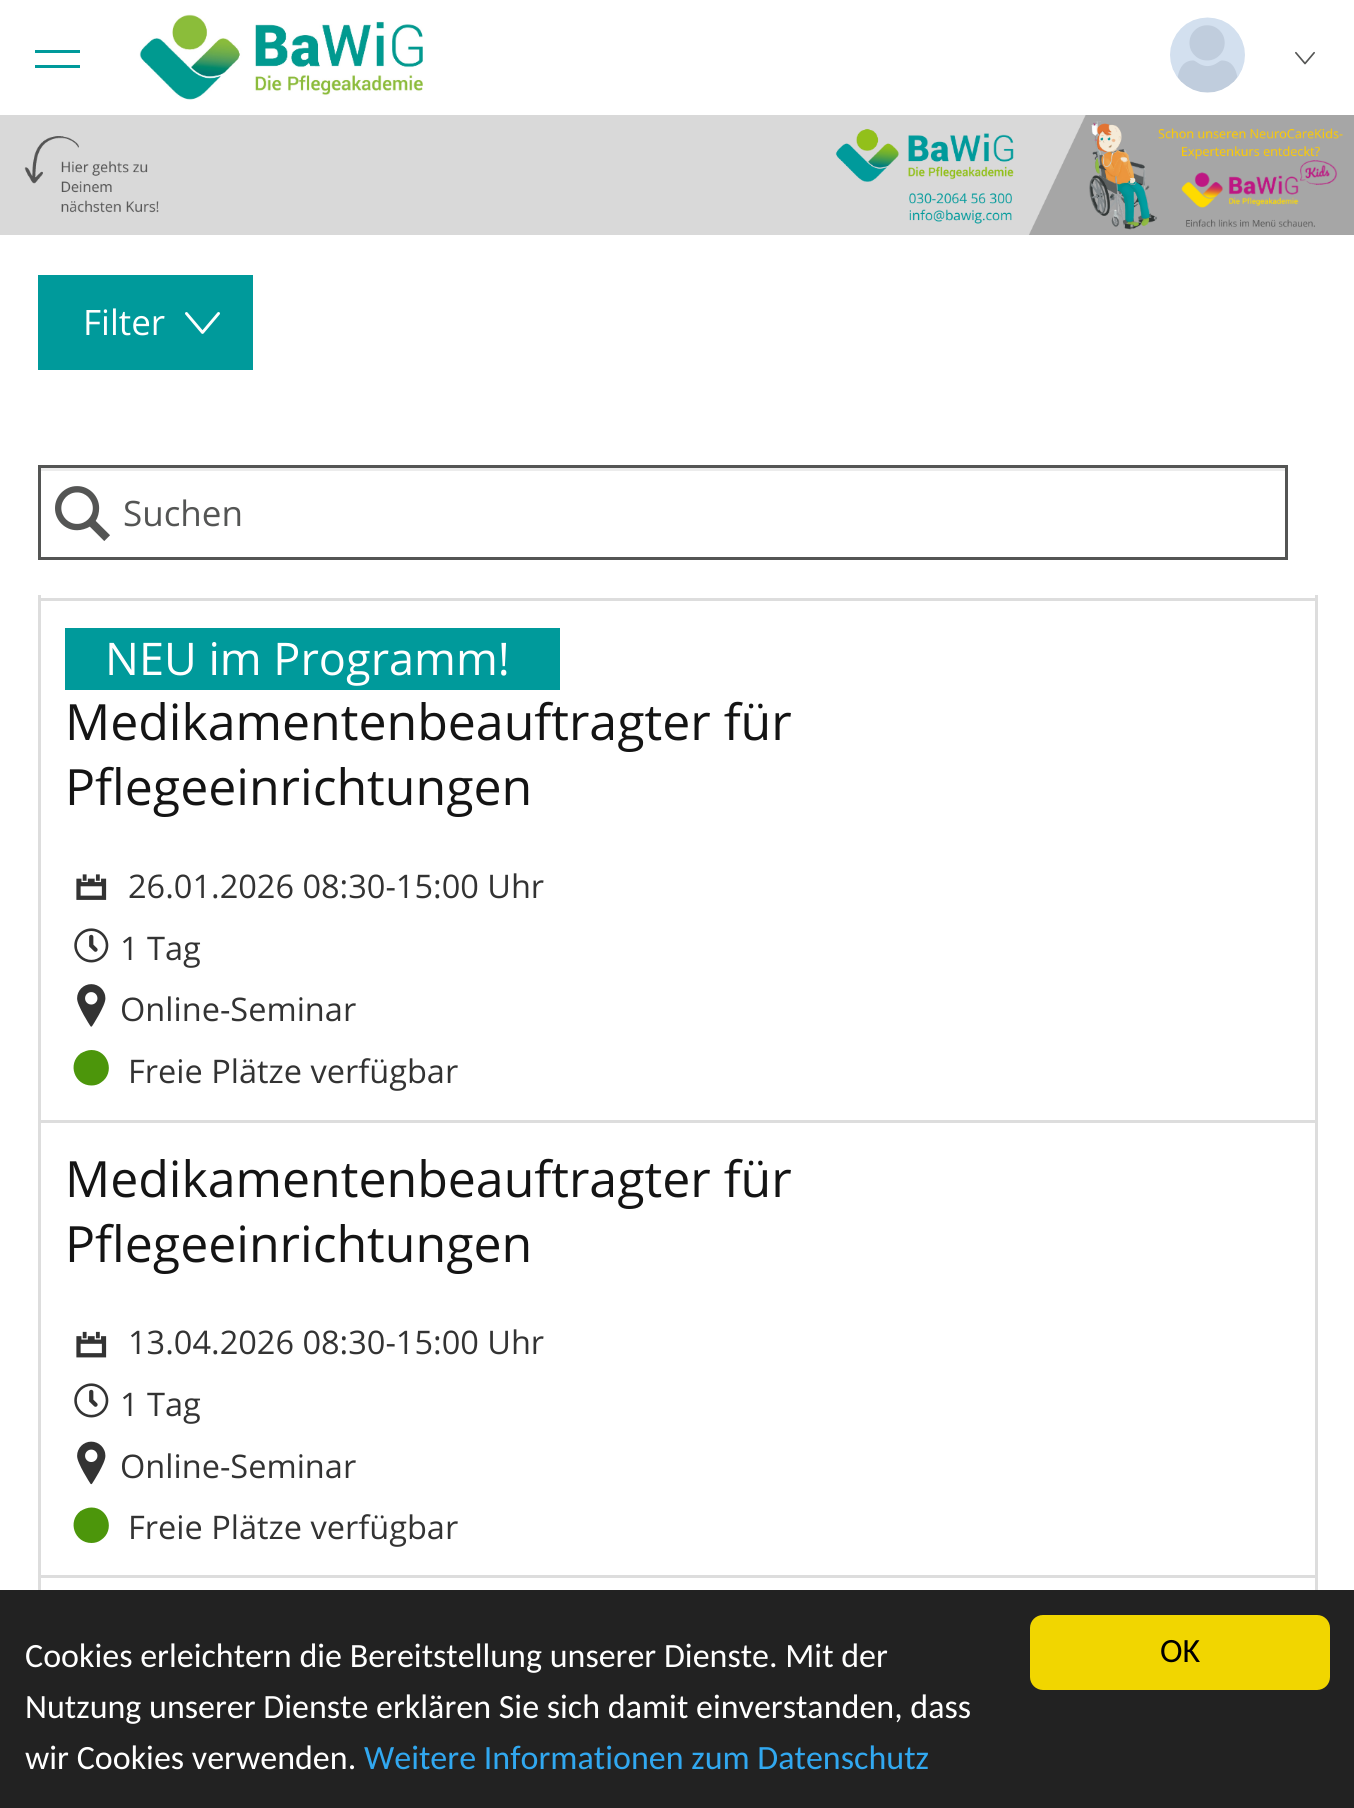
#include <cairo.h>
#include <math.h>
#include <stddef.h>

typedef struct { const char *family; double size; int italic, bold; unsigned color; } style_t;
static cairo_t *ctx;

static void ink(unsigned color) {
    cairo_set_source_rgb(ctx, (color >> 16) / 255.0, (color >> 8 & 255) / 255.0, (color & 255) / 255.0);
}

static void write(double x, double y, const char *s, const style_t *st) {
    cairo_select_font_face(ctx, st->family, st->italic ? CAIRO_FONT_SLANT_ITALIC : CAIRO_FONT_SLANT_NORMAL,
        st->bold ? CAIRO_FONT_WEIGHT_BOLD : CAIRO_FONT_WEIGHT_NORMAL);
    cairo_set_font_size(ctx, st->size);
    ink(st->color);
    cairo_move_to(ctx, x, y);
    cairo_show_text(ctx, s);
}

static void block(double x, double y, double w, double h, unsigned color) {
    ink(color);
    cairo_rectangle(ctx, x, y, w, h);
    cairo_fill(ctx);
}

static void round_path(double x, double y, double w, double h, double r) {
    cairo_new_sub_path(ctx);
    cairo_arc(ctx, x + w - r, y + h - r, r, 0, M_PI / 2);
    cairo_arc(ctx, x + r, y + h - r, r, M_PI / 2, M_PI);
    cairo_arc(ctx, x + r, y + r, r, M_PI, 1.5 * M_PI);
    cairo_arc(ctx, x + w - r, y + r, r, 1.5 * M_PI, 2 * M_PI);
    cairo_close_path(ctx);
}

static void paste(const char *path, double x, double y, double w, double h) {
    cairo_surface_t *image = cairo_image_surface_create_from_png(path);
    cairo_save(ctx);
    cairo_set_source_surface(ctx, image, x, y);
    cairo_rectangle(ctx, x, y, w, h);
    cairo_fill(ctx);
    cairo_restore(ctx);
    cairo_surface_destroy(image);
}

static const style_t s1 = {"Open Sans", 35, 0, 0, 0xffffff};
static const style_t s2 = {"Open Sans", 35, 0, 0, 0x545554};
static const style_t s3 = {"Open Sans", 45, 0, 0, 0xffffff};
static const style_t s4 = {"Open Sans", 50, 0, 0, 0x141414};
static const style_t s5 = {"Open Sans", 32.5, 0, 0, 0x333333};
static const style_t s6 = {"Carlito", 34, 0, 0, 0xffffff};
static const style_t s7 = {"Carlito", 34, 0, 0, 0x31a8f0};
static const style_t s8 = {"Carlito", 34, 0, 0, 0x000000};

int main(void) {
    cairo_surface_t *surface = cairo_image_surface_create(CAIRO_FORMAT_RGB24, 1354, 1808);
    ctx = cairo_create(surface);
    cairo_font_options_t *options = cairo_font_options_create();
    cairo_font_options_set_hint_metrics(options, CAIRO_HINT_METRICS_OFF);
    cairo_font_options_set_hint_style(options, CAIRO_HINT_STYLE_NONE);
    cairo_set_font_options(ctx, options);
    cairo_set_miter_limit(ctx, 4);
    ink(0xffffff);
    cairo_paint(ctx);
    block(35, 50, 45, 3, 0x009a9b);
    block(35, 65, 45, 3, 0x009a9b);
    paste("pic1.png", 139, 14, 284, 86);
    paste("pic2.png", 1170, 17, 75, 76);
    paste("pic3.png", 1295, 51, 20, 14);
    paste("pic4.png", 0, 115, 1354, 120);
    block(38, 275, 215, 95, 0x009a9b);
    write(83, 335, "Filter", &s1);
    paste("pic5.png", 185, 312, 35, 22);
    block(40, 468, 1245, 3, 0xececec);
    cairo_rectangle(ctx, 39.5, 466.5, 1247, 92);
    ink(0x545554);
    cairo_set_line_width(ctx, 3);
    cairo_stroke(ctx);
    paste("pic6.png", 55, 486, 55, 55);
    write(123, 526, "Suchen", &s2);
    block(1315, 595, 3, 3, 0xdddddd);
    block(38, 595, 3, 3, 0xdddddd);
    cairo_rectangle(ctx, 39.5, 599.5, 1277, 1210);
    cairo_stroke(ctx);
    block(40, 1120, 1275, 3, 0xdddddd);
    block(65, 628, 495, 62, 0x009a9b);
    write(105, 675, "NEU im Programm!", &s3);
    write(65, 740, "Medikamentenbeauftragter für", &s4);
    write(65, 805, "Pflegeeinrichtungen", &s4);
    paste("pic7.png", 76, 874, 31, 26);
    write(128, 898, "26.01.2026 08:30-15:00 Uhr", &s5);
    paste("pic8.png", 74, 928, 35, 35);
    write(120, 960, "1 Tag", &s5);
    paste("pic9.png", 77, 984, 29, 43);
    write(120, 1021, "Online-Seminar", &s5);
    ink(0x4c960b);
    cairo_new_path(ctx);
    cairo_move_to(ctx, 91.5, 1050);
    cairo_curve_to(ctx, 87.5, 1050, 84, 1051.5, 80.5, 1053.5);
    cairo_curve_to(ctx, 67, 1064, 74.5, 1085.5, 91.5, 1085.5);
    cairo_curve_to(ctx, 95, 1085.5, 98.5, 1084.5, 101, 1082.5);
    cairo_curve_to(ctx, 115.5, 1073, 108.5, 1050, 91.5, 1050);
    cairo_close_path(ctx);
    cairo_fill(ctx);
    write(128, 1083, "Freie Plätze verfügbar", &s5);
    block(40, 1575, 1275, 3, 0xdddddd);
    write(65, 1197, "Medikamentenbeauftragter für", &s4);
    write(65, 1262, "Pflegeeinrichtungen", &s4);
    paste("pic10.png", 76, 1331, 31, 27);
    write(128, 1354, "13.04.2026 08:30-15:00 Uhr", &s5);
    paste("pic8.png", 74, 1383, 35, 35);
    write(120, 1416, "1 Tag", &s5);
    paste("pic11.png", 77, 1441, 29, 44);
    write(120, 1478, "Online-Seminar", &s5);
    ink(0x4c960b);
    cairo_new_path(ctx);
    cairo_move_to(ctx, 91.5, 1507.5);
    cairo_curve_to(ctx, 87.5, 1507.5, 84, 1509, 80.5, 1511);
    cairo_curve_to(ctx, 67, 1521.5, 74.5, 1543, 91.5, 1543);
    cairo_curve_to(ctx, 95, 1543, 98.5, 1542, 101, 1540);
    cairo_curve_to(ctx, 115.5, 1530.5, 108.5, 1507.5, 91.5, 1507.5);
    cairo_close_path(ctx);
    cairo_fill(ctx);
    write(128, 1539, "Freie Plätze verfügbar", &s5);
    block(0, 1590, 1354, 218, 0x222222);
    write(25, 1667, "Cookies erleichtern die Bereitstellung unserer Dienste. Mit der", &s6);
    write(25, 1718, "Nutzung unserer Dienste erklären Sie sich damit einverstanden, dass", &s6);
    write(25, 1769, "wir Cookies verwenden.", &s6);
    write(364, 1769, "Weitere Informationen zum Datenschutz", &s7);
    ink(0xf1d600);
    round_path(1030, 1615, 300, 75, 13);
    cairo_fill(ctx);
    write(1160, 1662, "OK", &s8);
    cairo_surface_write_to_png(surface, "screenshot.png");
    cairo_font_options_destroy(options);
    cairo_destroy(ctx);
    cairo_surface_destroy(surface);
    return 0;
}
